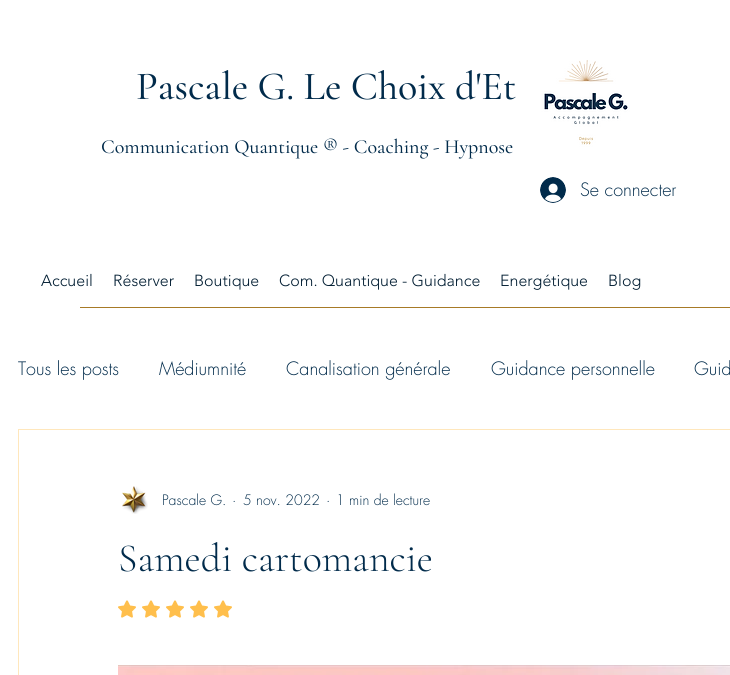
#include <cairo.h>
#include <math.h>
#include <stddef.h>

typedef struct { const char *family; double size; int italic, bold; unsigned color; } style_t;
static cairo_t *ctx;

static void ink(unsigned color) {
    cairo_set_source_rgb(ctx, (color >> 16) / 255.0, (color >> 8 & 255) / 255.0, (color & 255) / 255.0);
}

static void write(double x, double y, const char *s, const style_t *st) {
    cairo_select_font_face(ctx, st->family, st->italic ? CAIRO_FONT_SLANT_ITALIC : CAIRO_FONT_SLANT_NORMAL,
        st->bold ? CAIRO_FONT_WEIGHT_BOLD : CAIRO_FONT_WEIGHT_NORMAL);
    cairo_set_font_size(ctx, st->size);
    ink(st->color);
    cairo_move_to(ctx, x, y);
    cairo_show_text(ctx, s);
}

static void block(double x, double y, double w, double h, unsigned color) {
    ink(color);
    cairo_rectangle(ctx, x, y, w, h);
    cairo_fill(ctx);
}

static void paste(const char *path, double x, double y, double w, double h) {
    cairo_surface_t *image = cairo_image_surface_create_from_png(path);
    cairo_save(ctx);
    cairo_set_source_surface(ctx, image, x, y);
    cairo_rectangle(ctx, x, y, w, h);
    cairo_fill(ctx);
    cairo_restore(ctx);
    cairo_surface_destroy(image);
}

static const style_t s1 = {"Cormorant Garamond Medium", 40, 0, 0, 0x012b4b};
static const style_t s2 = {"Cormorant Garamond Medium", 20, 0, 0, 0x012b4b};
static const style_t s3 = {"futura Light", 18, 0, 0, 0x012b4b};
static const style_t s4 = {"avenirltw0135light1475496 Light", 16, 0, 0, 0x011d32};
static const style_t s5 = {"futura Light", 14, 0, 0, 0x012b4b};
static const style_t s6 = {"Cormorant Garamond Light", 40, 0, 0, 0x012b4b};

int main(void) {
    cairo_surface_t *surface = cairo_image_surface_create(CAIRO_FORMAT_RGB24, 730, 675);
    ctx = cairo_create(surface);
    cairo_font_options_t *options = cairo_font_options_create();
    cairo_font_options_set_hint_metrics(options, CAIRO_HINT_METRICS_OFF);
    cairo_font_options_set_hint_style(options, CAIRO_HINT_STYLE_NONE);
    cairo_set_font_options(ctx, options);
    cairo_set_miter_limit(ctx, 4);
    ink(0xffffff);
    cairo_paint(ctx);
    write(136, 99, "Pascale G. Le Choix d'Et", &s1);
    write(101, 153, "Communication Quantique ® - Coaching - Hypnose", &s2);
    paste("pic1.png", 517, 60, 113, 99);
    paste("pic2.png", 540, 177, 26, 26);
    write(580, 196, "Se connecter", &s3);
    write(41, 286, "Accueil", &s4);
    write(113, 286, "Réserver", &s4);
    write(194, 286, "Boutique", &s4);
    write(279, 286, "Com. Quantique - Guidance", &s4);
    write(500, 286, "Energétique", &s4);
    write(608, 286, "Blog", &s4);
    block(80, 307, 650, 1, 0xa77a26);
    write(18, 375, "Tous les posts", &s3);
    write(159, 375, "Médiumnité", &s3);
    write(286, 375, "Canalisation générale", &s3);
    write(491, 375, "Guidance personnelle", &s3);
    write(694, 375, "Guid", &s3);
    cairo_rectangle(ctx, 18.5, 429.5, 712, 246);
    ink(0xffe7bc);
    cairo_set_line_width(ctx, 1);
    cairo_stroke(ctx);
    paste("pic3.png", 122, 486, 26, 28);
    write(162, 505, "Pascale G.", &s5);
    write(232, 505, "·", &s5);
    write(243, 505, "5 nov. 2022", &s5);
    write(326, 505, "·", &s5);
    write(336, 505, "1 min de lecture", &s5);
    write(118, 571, "Samedi cartomancie", &s6);
    paste("pic4.png", 118, 600, 18, 18);
    paste("pic4.png", 142, 600, 18, 18);
    paste("pic4.png", 166, 600, 18, 18);
    paste("pic4.png", 190, 600, 18, 18);
    paste("pic4.png", 214, 600, 18, 18);
    paste("pic5.png", 118, 665, 612, 10);
    cairo_surface_write_to_png(surface, "screenshot.png");
    cairo_font_options_destroy(options);
    cairo_destroy(ctx);
    cairo_surface_destroy(surface);
    return 0;
}
